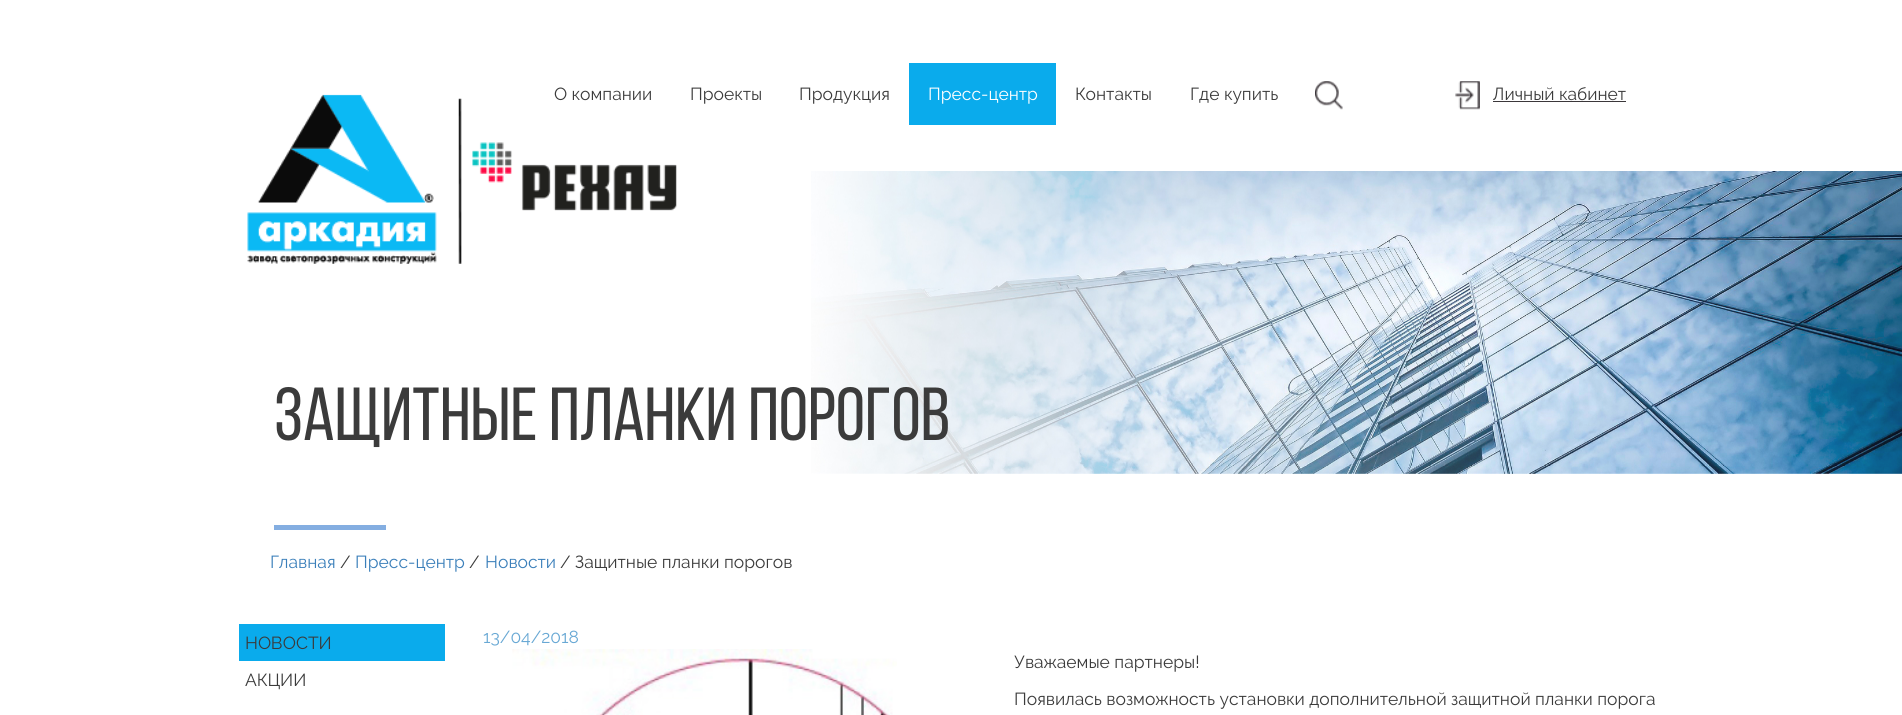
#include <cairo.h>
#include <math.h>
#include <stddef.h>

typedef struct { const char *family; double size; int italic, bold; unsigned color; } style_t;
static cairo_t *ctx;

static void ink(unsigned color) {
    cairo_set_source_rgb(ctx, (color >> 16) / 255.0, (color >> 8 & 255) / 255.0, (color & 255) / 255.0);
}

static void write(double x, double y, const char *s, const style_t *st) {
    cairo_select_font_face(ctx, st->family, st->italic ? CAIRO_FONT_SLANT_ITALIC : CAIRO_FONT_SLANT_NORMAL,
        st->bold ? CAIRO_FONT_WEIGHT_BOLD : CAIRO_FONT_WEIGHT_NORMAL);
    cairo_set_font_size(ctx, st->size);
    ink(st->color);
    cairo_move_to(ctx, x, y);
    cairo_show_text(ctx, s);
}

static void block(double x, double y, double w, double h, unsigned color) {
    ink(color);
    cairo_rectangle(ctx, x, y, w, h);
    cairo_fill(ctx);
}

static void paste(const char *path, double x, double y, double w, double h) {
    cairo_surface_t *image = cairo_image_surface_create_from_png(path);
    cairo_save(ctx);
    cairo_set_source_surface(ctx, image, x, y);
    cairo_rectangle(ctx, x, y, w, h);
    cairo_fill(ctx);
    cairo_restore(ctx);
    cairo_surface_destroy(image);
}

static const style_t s1 = {"Raleway", 17.5, 0, 0, 0x3b3b3b};
static const style_t s2 = {"Raleway", 17.5, 0, 0, 0xffffff};
static const style_t s3 = {"Bebas Neue", 75, 0, 0, 0x3b3b3b};
static const style_t s4 = {"Raleway", 17.5, 0, 0, 0x3b7fba};
static const style_t s5 = {"Raleway", 17.5, 0, 0, 0x68a8d4};

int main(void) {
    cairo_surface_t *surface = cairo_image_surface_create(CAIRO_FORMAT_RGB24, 1902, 715);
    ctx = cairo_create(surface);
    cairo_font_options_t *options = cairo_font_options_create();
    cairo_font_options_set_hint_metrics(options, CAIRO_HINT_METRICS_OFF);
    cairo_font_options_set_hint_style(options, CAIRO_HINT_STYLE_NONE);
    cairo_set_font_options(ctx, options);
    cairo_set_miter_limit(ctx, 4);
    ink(0xffffff);
    cairo_paint(ctx);
    paste("pic1.png", 247, 94, 430, 170);
    write(554, 100, "О компании", &s1);
    write(690, 100, "Проекты", &s1);
    write(799, 100, "Продукция", &s1);
    block(909, 63, 147, 62, 0x0aabec);
    write(928, 100, "Пресс-центр", &s2);
    write(1075, 100, "Контакты", &s1);
    write(1190, 100, "Где купить", &s1);
    paste("pic2.png", 1315, 81, 28, 29);
    paste("pic3.png", 1455, 81, 25, 29);
    write(1493, 100, "Личный кабинет", &s1);
    block(1493, 101, 133, 1, 0x3b373a);
    paste("pic4.png", 811, 171, 1091, 303);
    write(274, 440, "ЗАЩИТНЫЕ ПЛАНКИ ПОРОГОВ", &s3);
    block(274, 525, 112, 5, 0x84aee1);
    write(270, 568, "Главная", &s4);
    write(340, 568, "/", &s1);
    write(355, 568, "Пресс-центр", &s4);
    write(469, 568, "/", &s1);
    write(485, 568, "Новости", &s4);
    write(560, 568, "/ Защитные планки порогов", &s1);
    block(239, 624, 206, 37, 0x0aabec);
    write(245, 649, "НОВОСТИ", &s1);
    write(245, 686, "АКЦИИ", &s1);
    write(483, 643, "13/04/2018", &s5);
    paste("pic5.png", 512, 649, 385, 66);
    write(1014, 668, "Уважаемые партнеры!", &s1);
    write(1014, 705, "Появилась возможность установки дополнительной защитной планки порога", &s1);
    cairo_surface_write_to_png(surface, "screenshot.png");
    cairo_font_options_destroy(options);
    cairo_destroy(ctx);
    cairo_surface_destroy(surface);
    return 0;
}
